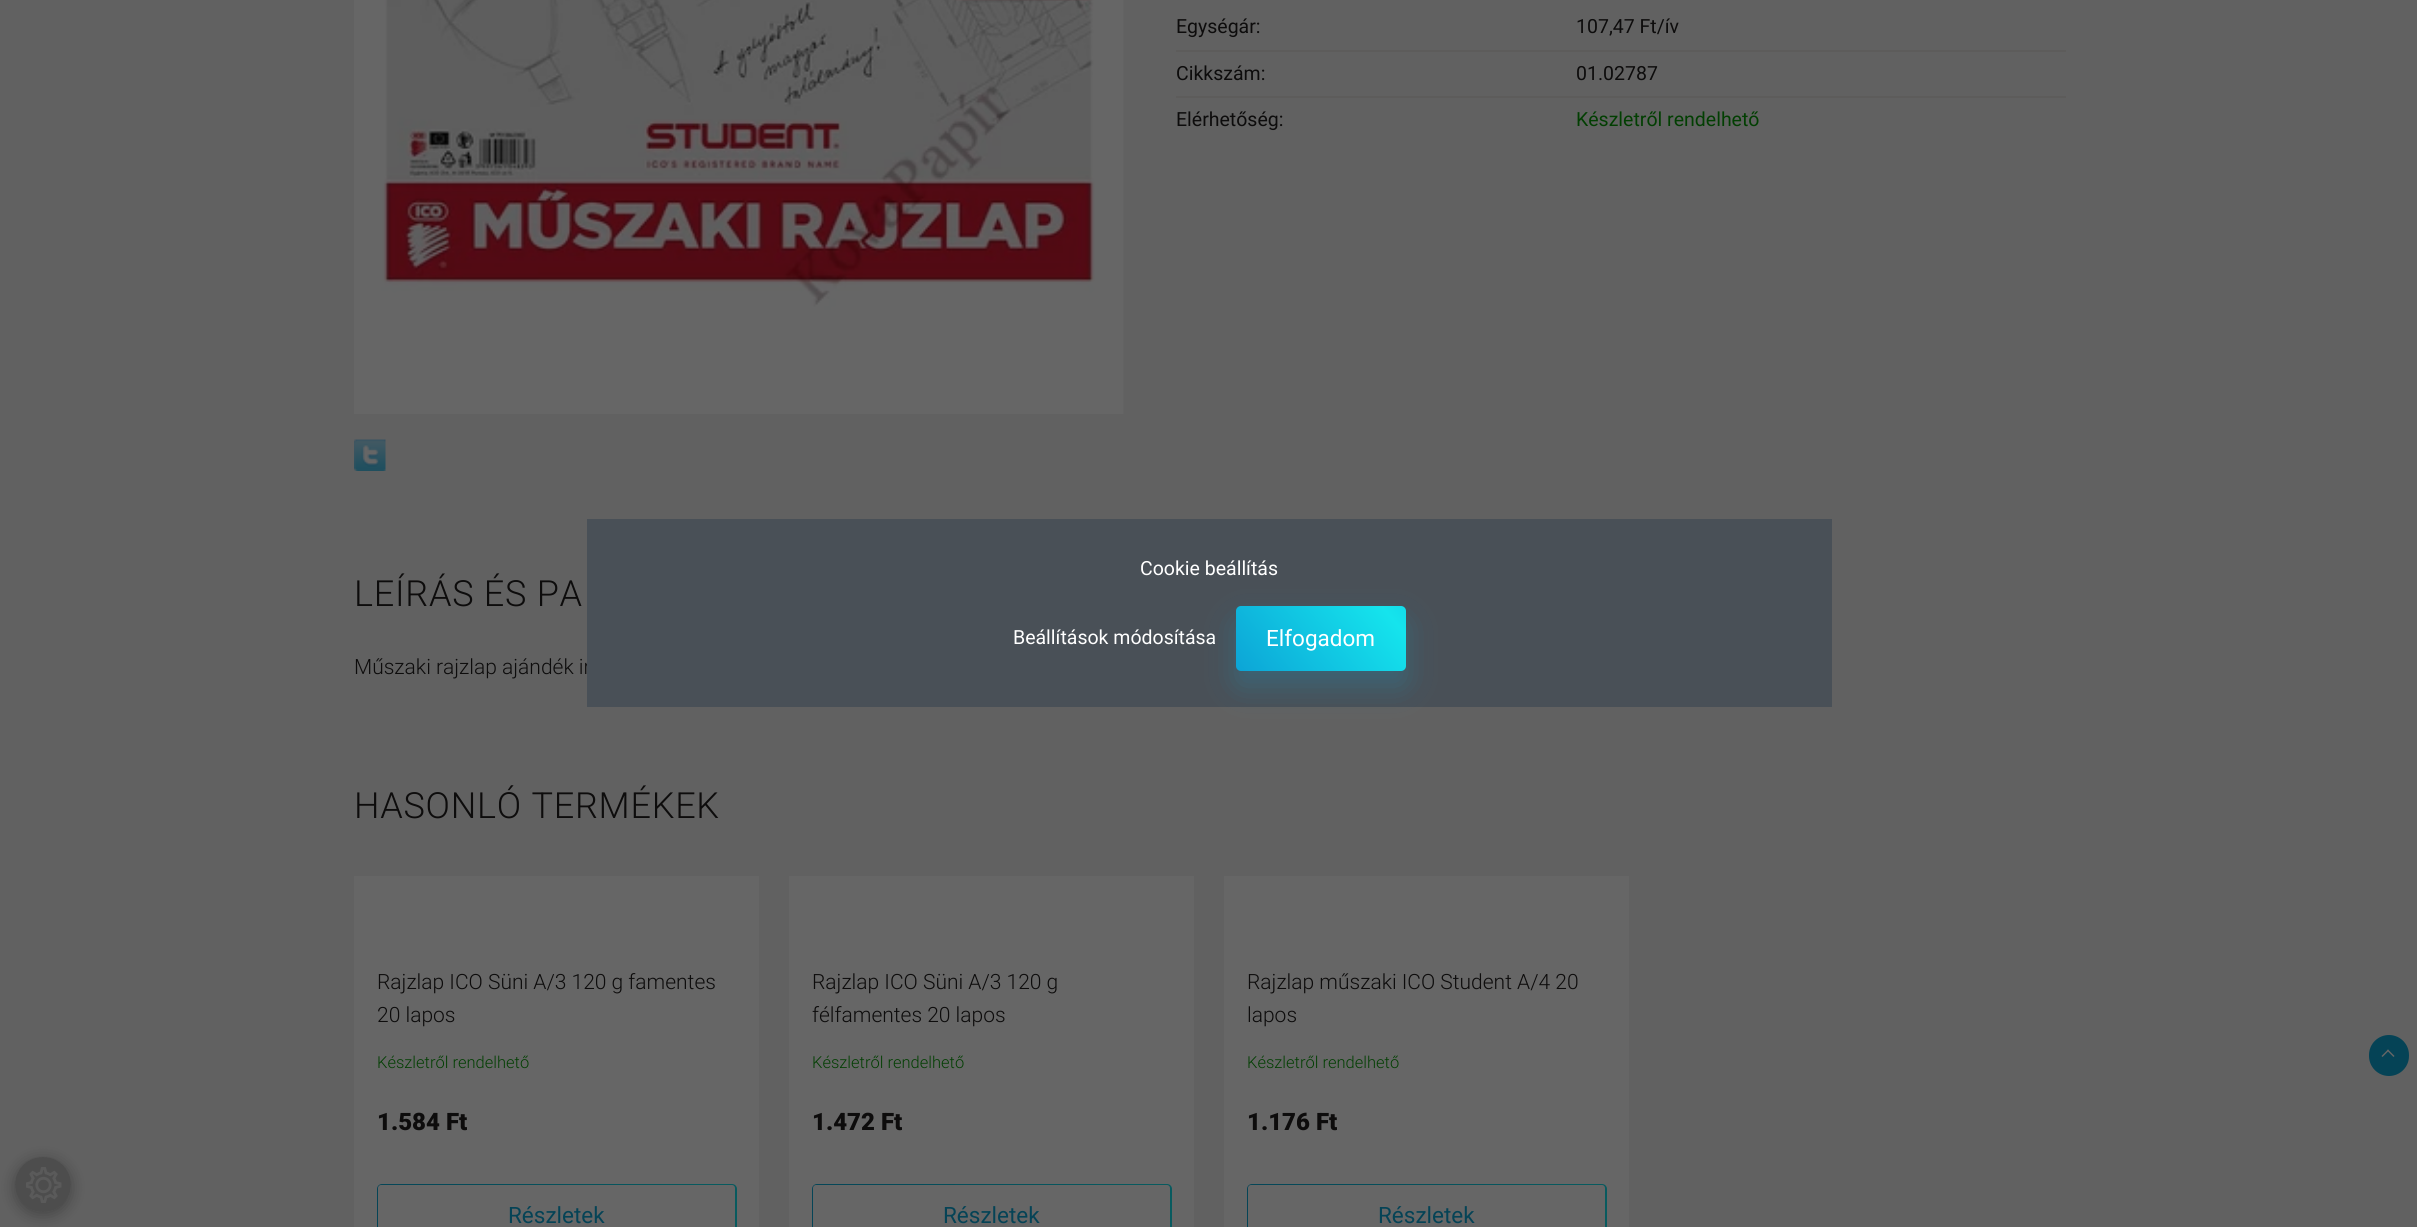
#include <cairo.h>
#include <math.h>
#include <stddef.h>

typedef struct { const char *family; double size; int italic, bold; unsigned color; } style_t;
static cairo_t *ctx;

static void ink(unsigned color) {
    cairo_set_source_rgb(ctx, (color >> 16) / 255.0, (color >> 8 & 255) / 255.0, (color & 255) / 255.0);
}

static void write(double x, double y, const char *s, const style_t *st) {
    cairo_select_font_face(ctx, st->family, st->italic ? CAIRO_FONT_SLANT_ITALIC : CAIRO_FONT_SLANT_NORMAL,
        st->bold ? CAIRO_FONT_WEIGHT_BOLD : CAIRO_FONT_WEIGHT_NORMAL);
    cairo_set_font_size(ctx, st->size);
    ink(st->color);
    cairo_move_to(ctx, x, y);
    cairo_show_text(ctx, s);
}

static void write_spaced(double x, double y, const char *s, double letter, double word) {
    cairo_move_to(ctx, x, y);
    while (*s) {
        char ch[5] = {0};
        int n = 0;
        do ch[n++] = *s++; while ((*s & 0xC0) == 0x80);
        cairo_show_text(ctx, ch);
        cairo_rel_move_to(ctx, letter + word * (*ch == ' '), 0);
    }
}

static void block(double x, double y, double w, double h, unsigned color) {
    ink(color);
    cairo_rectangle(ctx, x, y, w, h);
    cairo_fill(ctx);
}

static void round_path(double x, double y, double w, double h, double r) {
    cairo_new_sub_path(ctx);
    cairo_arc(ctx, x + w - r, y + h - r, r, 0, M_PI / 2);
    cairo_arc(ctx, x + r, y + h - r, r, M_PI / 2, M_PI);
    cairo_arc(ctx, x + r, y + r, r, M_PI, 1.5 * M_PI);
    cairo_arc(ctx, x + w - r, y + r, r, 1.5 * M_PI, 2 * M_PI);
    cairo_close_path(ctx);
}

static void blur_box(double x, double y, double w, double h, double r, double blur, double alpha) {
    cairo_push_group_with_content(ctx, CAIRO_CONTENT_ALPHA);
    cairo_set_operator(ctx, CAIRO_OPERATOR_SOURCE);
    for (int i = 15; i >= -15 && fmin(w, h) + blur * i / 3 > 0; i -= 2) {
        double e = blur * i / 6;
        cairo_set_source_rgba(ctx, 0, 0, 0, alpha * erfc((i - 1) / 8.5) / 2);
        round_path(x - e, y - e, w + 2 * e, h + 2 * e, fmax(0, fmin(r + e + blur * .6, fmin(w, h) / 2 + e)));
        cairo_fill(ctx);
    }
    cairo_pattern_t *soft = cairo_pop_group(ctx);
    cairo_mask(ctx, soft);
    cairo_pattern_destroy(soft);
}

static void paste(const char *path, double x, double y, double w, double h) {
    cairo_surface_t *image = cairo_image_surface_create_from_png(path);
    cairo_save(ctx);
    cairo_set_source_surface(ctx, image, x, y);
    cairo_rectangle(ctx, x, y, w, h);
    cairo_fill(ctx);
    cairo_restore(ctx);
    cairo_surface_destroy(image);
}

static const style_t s1 = {"Roboto", 19.5, 0, 0, 0x0d0c0c};
static const style_t s2 = {"Roboto", 19.5, 0, 0, 0x023f02};
static const style_t s3 = {"Roboto Light", 21, 0, 0, 0x0d0c0c};
static const style_t s4 = {"Roboto Light", 16.5, 0, 0, 0x023f02};
static const style_t s5 = {"Roboto Black", 24, 0, 0, 0x0d0c0c};
static const style_t s6 = {"Roboto", 22.5, 0, 0, 0x054356};
static const style_t s7 = {"Roboto", 19.5, 0, 0, 0xffffff};
static const style_t s8 = {"Roboto", 22.5, 0, 0, 0xffffff};

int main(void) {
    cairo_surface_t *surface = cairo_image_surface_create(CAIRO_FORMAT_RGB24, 2417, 1227);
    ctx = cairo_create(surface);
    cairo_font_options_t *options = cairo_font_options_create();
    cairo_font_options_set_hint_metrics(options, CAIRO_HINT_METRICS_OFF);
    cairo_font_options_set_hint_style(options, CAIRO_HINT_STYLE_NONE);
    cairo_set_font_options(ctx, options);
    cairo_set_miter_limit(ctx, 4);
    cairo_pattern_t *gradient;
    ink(0x616161);
    cairo_paint(ctx);
    cairo_save(ctx);
    cairo_set_fill_rule(ctx, CAIRO_FILL_RULE_EVEN_ODD);
    cairo_new_path(ctx);
    cairo_move_to(ctx, 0, 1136);
    cairo_line_to(ctx, 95, 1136);
    cairo_line_to(ctx, 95, 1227);
    cairo_line_to(ctx, 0, 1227);
    cairo_close_path(ctx);
    cairo_move_to(ctx, 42.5, 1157);
    cairo_line_to(ctx, 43.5, 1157);
    cairo_curve_to(ctx, 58.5, 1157, 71, 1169.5, 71, 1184.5);
    cairo_curve_to(ctx, 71, 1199.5, 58.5, 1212, 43.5, 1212);
    cairo_line_to(ctx, 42.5, 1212);
    cairo_curve_to(ctx, 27.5, 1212, 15, 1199.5, 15, 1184.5);
    cairo_curve_to(ctx, 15, 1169.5, 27.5, 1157, 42.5, 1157);
    cairo_close_path(ctx);
    cairo_clip(ctx);
    ink(0x000000);
    blur_box(15, 1160, 56, 55, 27.5, 7.5, 0.3);
    cairo_restore(ctx);
    cairo_set_source_rgba(ctx, 0.122, 0.122, 0.122, 0.3);
    round_path(15, 1157, 56, 55, 27.5);
    cairo_fill(ctx);
    paste("pic1.png", 26, 1167, 36, 36);
    paste("pic2.png", 354, 0, 770, 414);
    paste("pic3.png", 354, 439, 32, 32);
    block(1176, 50, 890, 2, 0x5d5c5b);
    write(1176, 33, "Egységár:", &s1);
    write(1576, 33, "107,47 Ft/ív", &s1);
    block(1176, 96, 890, 2, 0x5d5c5b);
    write(1176, 80, "Cikkszám:", &s1);
    write(1576, 80, "01.02787", &s1);
    write(1176, 126, "Elérhetőség:", &s1);
    write(1576, 126, "Készletről rendelhető", &s2);
    cairo_select_font_face(ctx, "Roboto Light", CAIRO_FONT_SLANT_NORMAL, CAIRO_FONT_WEIGHT_NORMAL);
    cairo_set_font_size(ctx, 36);
    ink(0x0d0c0c);
    write_spaced(354, 606, "LEÍRÁS ÉS PA", 0.75, 0);
    write(354, 674, "Műszaki rajzlap ajándék ir", &s3);
    cairo_set_font_size(ctx, 36);
    write_spaced(354, 818, "HASONLÓ TERMÉKEK", 0.75, 0);
    block(354, 876, 405, 351, 0x666666);
    write(377, 989, "Rajzlap ICO Süni A/3 120 g famentes", &s3);
    write(377, 1022, "20 lapos", &s3);
    write(377, 1068, "Készletről rendelhető", &s4);
    write(377, 1130, "1.584 Ft", &s5);
    gradient = cairo_pattern_create_linear(509, 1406, 964, 1025);
    cairo_pattern_add_color_stop_rgba(gradient, 0, 0.02, 0.259, 0.337, 1);
    cairo_pattern_add_color_stop_rgba(gradient, 0.51, 0.031, 0.357, 0.373, 1);
    cairo_pattern_add_color_stop_rgba(gradient, 1, 0.02, 0.259, 0.337, 1);
    cairo_set_source(ctx, gradient);
    cairo_pattern_destroy(gradient);
    round_path(377, 1184, 360, 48, 5);
    cairo_fill(ctx);
    ink(0x666666);
    round_path(378, 1185, 357, 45, 3);
    cairo_fill(ctx);
    write(508, 1223, "Részletek", &s6);
    block(789, 876, 405, 351, 0x666666);
    write(812, 989, "Rajzlap ICO Süni A/3 120 g", &s3);
    write(812, 1022, "félfamentes 20 lapos", &s3);
    write(812, 1068, "Készletről rendelhető", &s4);
    write(812, 1130, "1.472 Ft", &s5);
    gradient = cairo_pattern_create_linear(944, 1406, 1399, 1025);
    cairo_pattern_add_color_stop_rgba(gradient, 0, 0.02, 0.259, 0.337, 1);
    cairo_pattern_add_color_stop_rgba(gradient, 0.51, 0.031, 0.357, 0.373, 1);
    cairo_pattern_add_color_stop_rgba(gradient, 1, 0.02, 0.259, 0.337, 1);
    cairo_set_source(ctx, gradient);
    cairo_pattern_destroy(gradient);
    round_path(812, 1184, 360, 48, 5);
    cairo_fill(ctx);
    ink(0x666666);
    round_path(813, 1185, 357, 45, 3);
    cairo_fill(ctx);
    write(943, 1223, "Részletek", &s6);
    block(1224, 876, 405, 351, 0x666666);
    write(1247, 989, "Rajzlap műszaki ICO Student A/4 20", &s3);
    write(1247, 1022, "lapos", &s3);
    write(1247, 1068, "Készletről rendelhető", &s4);
    write(1247, 1130, "1.176 Ft", &s5);
    gradient = cairo_pattern_create_linear(1379, 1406, 1834, 1025);
    cairo_pattern_add_color_stop_rgba(gradient, 0, 0.02, 0.259, 0.337, 1);
    cairo_pattern_add_color_stop_rgba(gradient, 0.51, 0.031, 0.357, 0.373, 1);
    cairo_pattern_add_color_stop_rgba(gradient, 1, 0.02, 0.259, 0.337, 1);
    cairo_set_source(ctx, gradient);
    cairo_pattern_destroy(gradient);
    round_path(1247, 1184, 360, 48, 5);
    cairo_fill(ctx);
    ink(0x666666);
    round_path(1248, 1185, 357, 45, 3);
    cairo_fill(ctx);
    write(1378, 1223, "Részletek", &s6);
    round_path(2369, 1035, 40, 41, 20);
    cairo_fill(ctx);
    ink(0x666666);
    cairo_new_path(ctx);
    cairo_move_to(ctx, 2382.5, 1057);
    cairo_line_to(ctx, 2381.5, 1056);
    cairo_line_to(ctx, 2388, 1049.5);
    cairo_line_to(ctx, 2389, 1050.5);
    cairo_close_path(ctx);
    cairo_fill(ctx);
    cairo_new_path(ctx);
    cairo_move_to(ctx, 2393.5, 1057);
    cairo_line_to(ctx, 2387, 1050.5);
    cairo_line_to(ctx, 2388, 1049.5);
    cairo_line_to(ctx, 2394.5, 1056);
    cairo_close_path(ctx);
    cairo_fill(ctx);
    block(587, 519, 1245, 188, 0x495057);
    write(1140, 575, "Cookie beállítás", &s7);
    write(1013, 644, "Beállítások módosítása", &s7);
    ink(0x0ca4d6);
    blur_box(1236, 621, 170, 65, 5, 15, 0.25);
    gradient = cairo_pattern_create_linear(1290, 736, 1521, 542);
    cairo_pattern_add_color_stop_rgba(gradient, 0, 0.047, 0.643, 0.839, 1);
    cairo_pattern_add_color_stop_rgba(gradient, 0.51, 0.082, 0.894, 0.929, 1);
    cairo_pattern_add_color_stop_rgba(gradient, 1, 0.047, 0.643, 0.839, 1);
    cairo_set_source(ctx, gradient);
    cairo_pattern_destroy(gradient);
    round_path(1236, 606, 170, 65, 5);
    cairo_fill(ctx);
    write(1266, 646, "Elfogadom", &s8);
    cairo_surface_write_to_png(surface, "screenshot.png");
    cairo_font_options_destroy(options);
    cairo_destroy(ctx);
    cairo_surface_destroy(surface);
    return 0;
}
